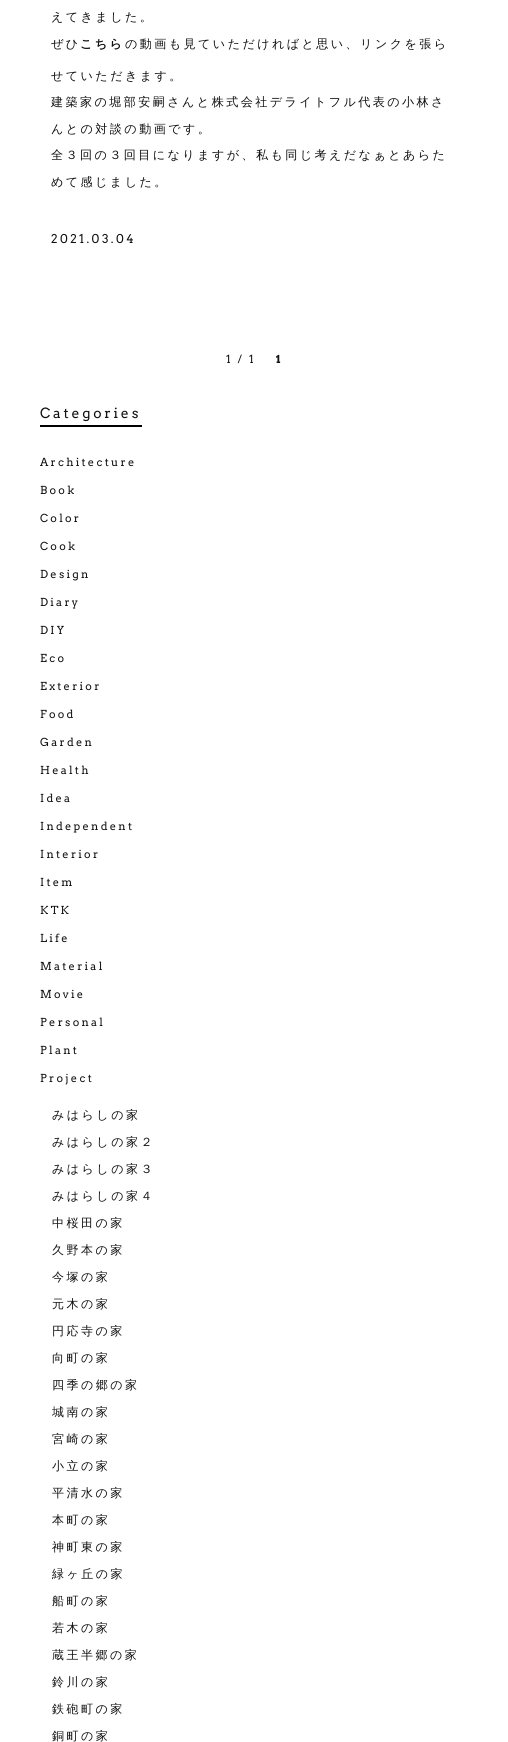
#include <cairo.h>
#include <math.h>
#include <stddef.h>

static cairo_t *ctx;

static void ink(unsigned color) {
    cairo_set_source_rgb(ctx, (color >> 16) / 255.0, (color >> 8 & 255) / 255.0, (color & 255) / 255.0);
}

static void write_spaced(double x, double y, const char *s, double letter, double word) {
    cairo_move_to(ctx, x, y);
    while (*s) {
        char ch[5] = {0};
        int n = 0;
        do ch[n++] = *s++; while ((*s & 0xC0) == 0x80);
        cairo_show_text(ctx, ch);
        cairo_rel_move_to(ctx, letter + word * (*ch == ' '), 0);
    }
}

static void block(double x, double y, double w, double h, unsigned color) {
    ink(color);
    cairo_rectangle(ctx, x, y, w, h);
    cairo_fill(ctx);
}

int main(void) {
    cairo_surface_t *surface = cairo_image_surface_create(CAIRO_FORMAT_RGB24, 508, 1742);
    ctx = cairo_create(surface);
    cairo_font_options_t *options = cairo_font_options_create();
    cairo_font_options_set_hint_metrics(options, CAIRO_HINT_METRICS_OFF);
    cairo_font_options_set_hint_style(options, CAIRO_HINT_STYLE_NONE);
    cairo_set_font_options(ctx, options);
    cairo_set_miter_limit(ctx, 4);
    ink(0xffffff);
    cairo_paint(ctx);
    cairo_select_font_face(ctx, "WenQuanYi Zen Hei Medium", CAIRO_FONT_SLANT_NORMAL, CAIRO_FONT_WEIGHT_NORMAL);
    cairo_set_font_size(ctx, 12.1);
    ink(0x111111);
    write_spaced(51, 21, "えてきました。", 2.4, 0);
    write_spaced(51, 48, "ぜひ", 2.4, 0);
    cairo_select_font_face(ctx, "WenQuanYi Zen Hei", CAIRO_FONT_SLANT_NORMAL, CAIRO_FONT_WEIGHT_BOLD);
    write_spaced(80, 48, "こちら", 2.4, 0);
    cairo_select_font_face(ctx, "WenQuanYi Zen Hei Medium", CAIRO_FONT_SLANT_NORMAL, CAIRO_FONT_WEIGHT_NORMAL);
    write_spaced(125, 48, "の動画も見ていただければと思い、リンクを張ら", 2.4, 0);
    write_spaced(51, 80, "せていただきます。", 2.4, 0);
    write_spaced(51, 106, "建築家の堀部安嗣さんと株式会社デライトフル代表の小林さ", 2.4, 0);
    write_spaced(51, 133, "んとの対談の動画です。", 2.4, 0);
    write_spaced(51, 159, "全３回の３回目になりますが、私も同じ考えだなぁとあらた", 2.4, 0);
    write_spaced(51, 186, "めて感じました。", 2.4, 0);
    cairo_select_font_face(ctx, "Arvo", CAIRO_FONT_SLANT_NORMAL, CAIRO_FONT_WEIGHT_NORMAL);
    write_spaced(51, 243, "2021.03.04", 2.4, 0);
    cairo_set_font_size(ctx, 11);
    write_spaced(226, 363, "1 / 1", 2.25, 0);
    cairo_select_font_face(ctx, "Arvo", CAIRO_FONT_SLANT_NORMAL, CAIRO_FONT_WEIGHT_BOLD);
    write_spaced(276, 363, "1", 2.25, 0);
    block(40, 425, 102, 2, 0x000000);
    cairo_select_font_face(ctx, "Arvo", CAIRO_FONT_SLANT_NORMAL, CAIRO_FONT_WEIGHT_NORMAL);
    cairo_set_font_size(ctx, 14);
    ink(0x111111);
    write_spaced(40, 418, "Categories", 2.75, 0);
    cairo_set_font_size(ctx, 11);
    write_spaced(40, 466, "Architecture", 2.25, 0);
    write_spaced(40, 494, "Book", 2.25, 0);
    write_spaced(40, 522, "Color", 2.25, 0);
    write_spaced(40, 550, "Cook", 2.25, 0);
    write_spaced(40, 578, "Design", 2.25, 0);
    write_spaced(40, 606, "Diary", 2.25, 0);
    write_spaced(40, 634, "DIY", 2.25, 0);
    write_spaced(40, 662, "Eco", 2.25, 0);
    write_spaced(40, 690, "Exterior", 2.25, 0);
    write_spaced(40, 718, "Food", 2.25, 0);
    write_spaced(40, 746, "Garden", 2.25, 0);
    write_spaced(40, 774, "Health", 2.25, 0);
    write_spaced(40, 802, "Idea", 2.25, 0);
    write_spaced(40, 830, "Independent", 2.25, 0);
    write_spaced(40, 858, "Interior", 2.25, 0);
    write_spaced(40, 886, "Item", 2.25, 0);
    write_spaced(40, 914, "KTK", 2.25, 0);
    write_spaced(40, 942, "Life", 2.25, 0);
    write_spaced(40, 970, "Material", 2.25, 0);
    write_spaced(40, 998, "Movie", 2.25, 0);
    write_spaced(40, 1026, "Personal", 2.25, 0);
    write_spaced(40, 1054, "Plant", 2.25, 0);
    write_spaced(40, 1082, "Project", 2.25, 0);
    cairo_select_font_face(ctx, "WenQuanYi Zen Hei Medium", CAIRO_FONT_SLANT_NORMAL, CAIRO_FONT_WEIGHT_NORMAL);
    cairo_set_font_size(ctx, 12);
    write_spaced(52, 1119, "みはらしの家", 2.5, 0);
    write_spaced(52, 1146, "みはらしの家２", 2.5, 0);
    write_spaced(52, 1173, "みはらしの家３", 2.5, 0);
    write_spaced(52, 1200, "みはらしの家４", 2.5, 0);
    write_spaced(52, 1227, "中桜田の家", 2.5, 0);
    write_spaced(52, 1254, "久野本の家", 2.5, 0);
    write_spaced(52, 1281, "今塚の家", 2.5, 0);
    write_spaced(52, 1308, "元木の家", 2.5, 0);
    write_spaced(52, 1335, "円応寺の家", 2.5, 0);
    write_spaced(52, 1362, "向町の家", 2.5, 0);
    write_spaced(52, 1389, "四季の郷の家", 2.5, 0);
    write_spaced(52, 1416, "城南の家", 2.5, 0);
    write_spaced(52, 1443, "宮崎の家", 2.5, 0);
    write_spaced(52, 1470, "小立の家", 2.5, 0);
    write_spaced(52, 1497, "平清水の家", 2.5, 0);
    write_spaced(52, 1524, "本町の家", 2.5, 0);
    write_spaced(52, 1551, "神町東の家", 2.5, 0);
    write_spaced(52, 1578, "緑ヶ丘の家", 2.5, 0);
    write_spaced(52, 1605, "船町の家", 2.5, 0);
    write_spaced(52, 1632, "若木の家", 2.5, 0);
    write_spaced(52, 1659, "蔵王半郷の家", 2.5, 0);
    write_spaced(52, 1686, "鈴川の家", 2.5, 0);
    write_spaced(52, 1713, "鉄砲町の家", 2.5, 0);
    write_spaced(52, 1740, "銅町の家", 2.5, 0);
    cairo_surface_write_to_png(surface, "screenshot.png");
    cairo_font_options_destroy(options);
    cairo_destroy(ctx);
    cairo_surface_destroy(surface);
    return 0;
}
